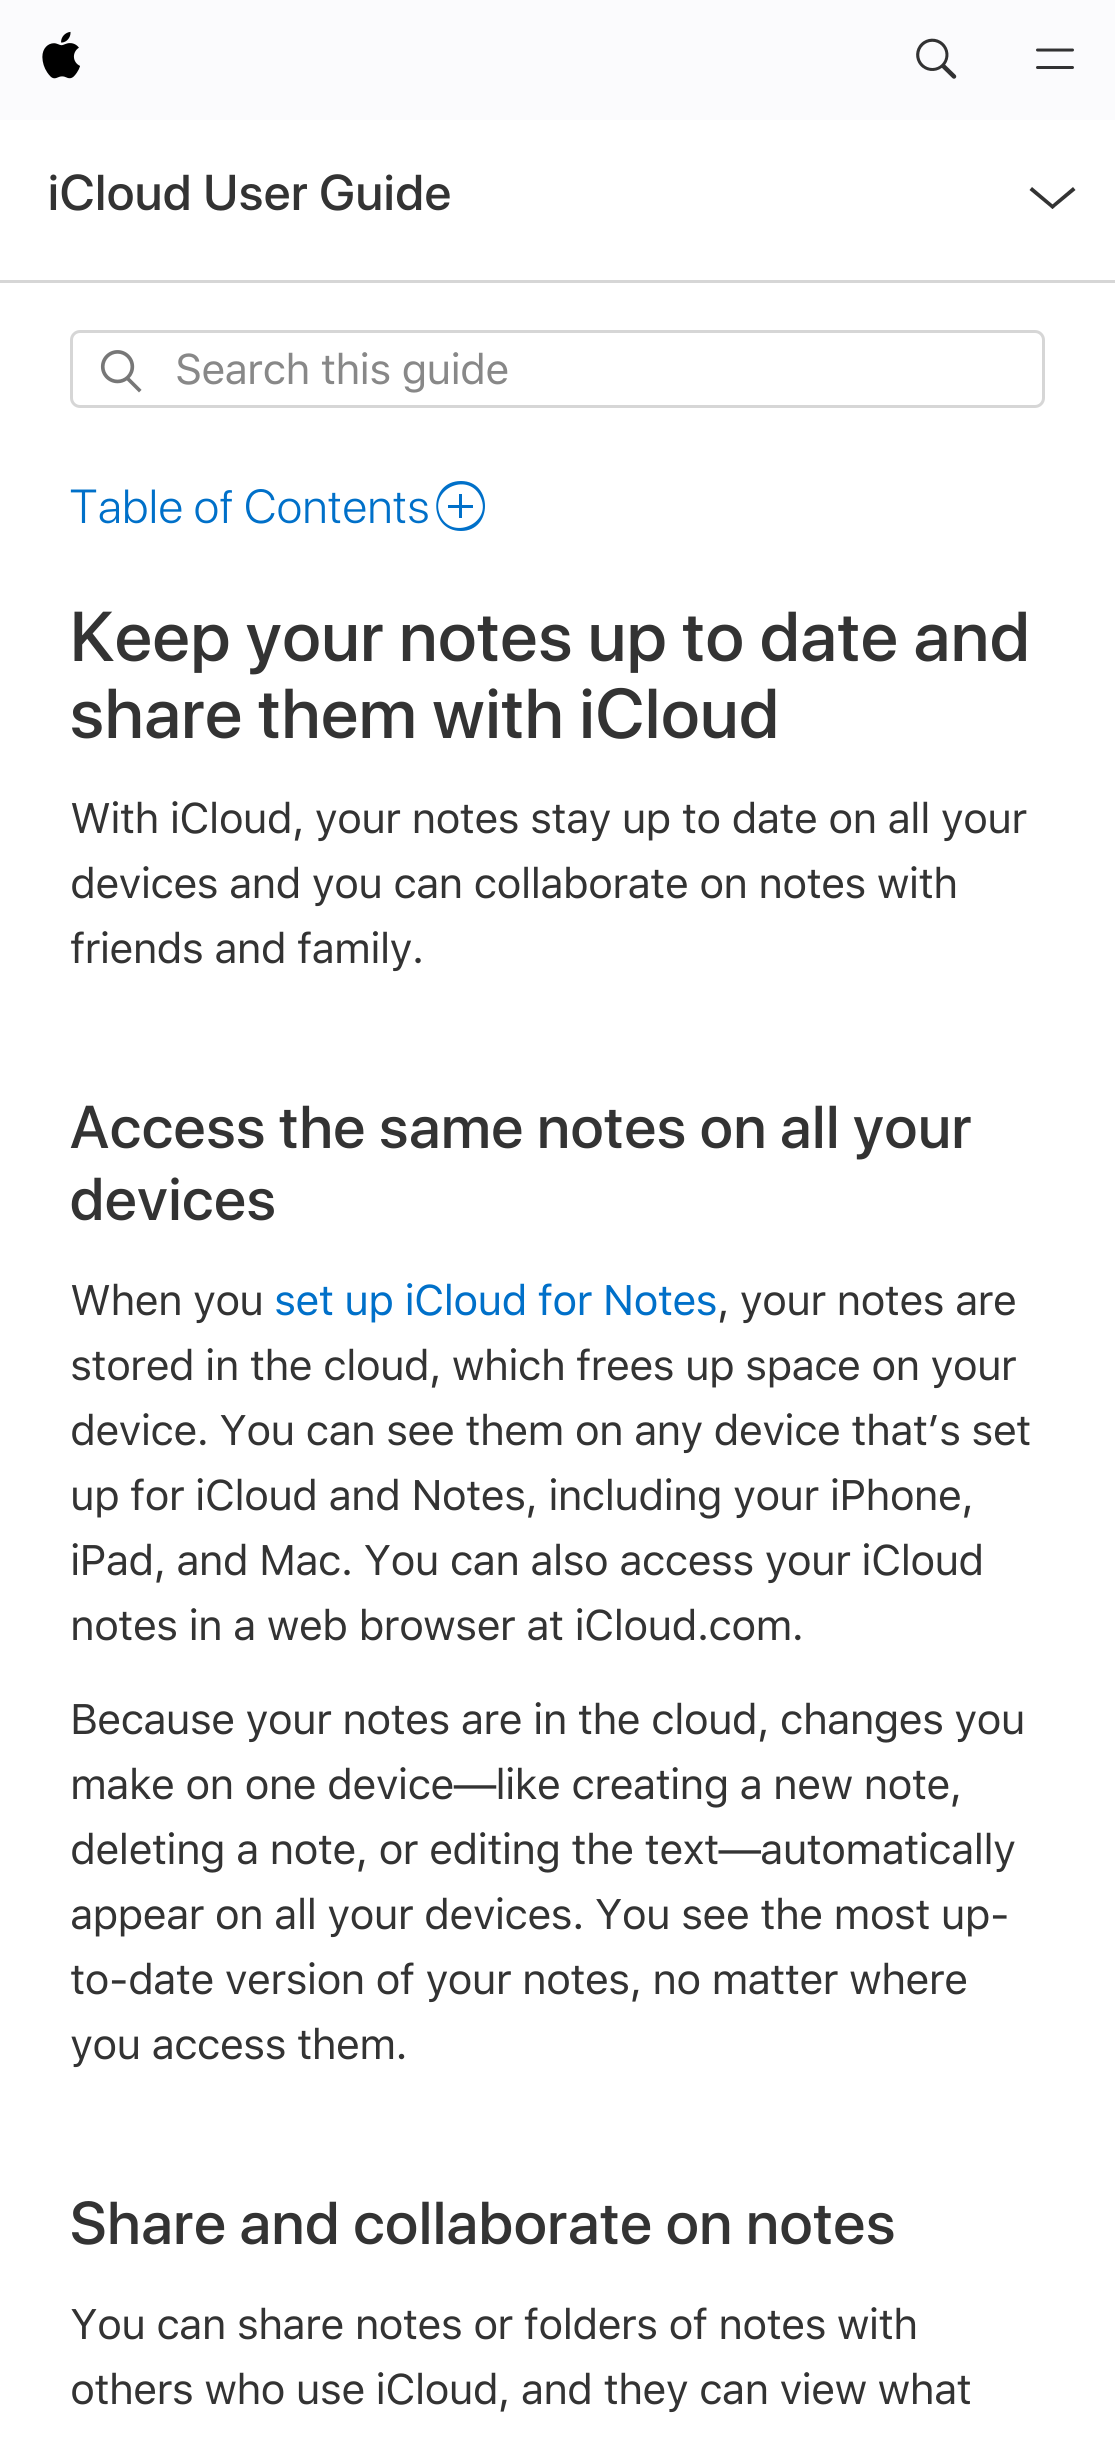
#include <cairo.h>
#include <math.h>
#include <stddef.h>

static cairo_t *ctx;

static void ink(unsigned color) {
    cairo_set_source_rgb(ctx, (color >> 16) / 255.0, (color >> 8 & 255) / 255.0, (color & 255) / 255.0);
}

static void write_spaced(double x, double y, const char *s, double letter, double word) {
    cairo_move_to(ctx, x, y);
    while (*s) {
        char ch[5] = {0};
        int n = 0;
        do ch[n++] = *s++; while ((*s & 0xC0) == 0x80);
        cairo_show_text(ctx, ch);
        cairo_rel_move_to(ctx, letter + word * (*ch == ' '), 0);
    }
}

static void block(double x, double y, double w, double h, unsigned color) {
    ink(color);
    cairo_rectangle(ctx, x, y, w, h);
    cairo_fill(ctx);
}

static void round_path(double x, double y, double w, double h, double r) {
    cairo_new_sub_path(ctx);
    cairo_arc(ctx, x + w - r, y + h - r, r, 0, M_PI / 2);
    cairo_arc(ctx, x + r, y + h - r, r, M_PI / 2, M_PI);
    cairo_arc(ctx, x + r, y + r, r, M_PI, 1.5 * M_PI);
    cairo_arc(ctx, x + w - r, y + r, r, 1.5 * M_PI, 2 * M_PI);
    cairo_close_path(ctx);
}

static void paste(const char *path, double x, double y, double w, double h) {
    cairo_surface_t *image = cairo_image_surface_create_from_png(path);
    cairo_save(ctx);
    cairo_set_source_surface(ctx, image, x, y);
    cairo_rectangle(ctx, x, y, w, h);
    cairo_fill(ctx);
    cairo_restore(ctx);
    cairo_surface_destroy(image);
}

int main(void) {
    cairo_surface_t *surface = cairo_image_surface_create(CAIRO_FORMAT_RGB24, 1115, 2447);
    ctx = cairo_create(surface);
    cairo_font_options_t *options = cairo_font_options_create();
    cairo_font_options_set_hint_metrics(options, CAIRO_HINT_METRICS_OFF);
    cairo_font_options_set_hint_style(options, CAIRO_HINT_STYLE_NONE);
    cairo_set_font_options(ctx, options);
    cairo_set_miter_limit(ctx, 4);
    ink(0xffffff);
    cairo_paint(ctx);
    block(0, 0, 1115, 120, 0xfbfbfd);
    paste("pic1.png", 42, 31, 38, 48);
    paste("pic2.png", 916, 38, 41, 41);
    cairo_new_path(ctx);
    cairo_move_to(ctx, 1037.5, 67.5);
    cairo_line_to(ctx, 1072.5, 67.5);
    cairo_move_to(ctx, 1037.5, 50);
    cairo_line_to(ctx, 1072.5, 50);
    ink(0x323233);
    cairo_set_line_width(ctx, 3);
    cairo_set_line_cap(ctx, CAIRO_LINE_CAP_ROUND);
    cairo_set_line_join(ctx, CAIRO_LINE_JOIN_ROUND);
    cairo_stroke(ctx);
    cairo_select_font_face(ctx, "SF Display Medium", CAIRO_FONT_SLANT_NORMAL, CAIRO_FONT_WEIGHT_NORMAL);
    cairo_set_font_size(ctx, 50);
    ink(0x333333);
    write_spaced(48, 210, "iCloud User Guide", 0.8, 0);
    cairo_new_path(ctx);
    cairo_move_to(ctx, 1032, 187);
    cairo_line_to(ctx, 1055, 206.5);
    cairo_line_to(ctx, 1052.5, 209);
    cairo_line_to(ctx, 1029.5, 190);
    cairo_close_path(ctx);
    cairo_fill(ctx);
    cairo_new_path(ctx);
    cairo_move_to(ctx, 1050, 206.5);
    cairo_line_to(ctx, 1073, 187);
    cairo_line_to(ctx, 1075.5, 190);
    cairo_line_to(ctx, 1052.5, 209);
    cairo_close_path(ctx);
    cairo_fill(ctx);
    block(0, 280, 1115, 3, 0xd6d6d6);
    round_path(71.5, 331.5, 972, 75, 8.5);
    cairo_set_line_cap(ctx, CAIRO_LINE_CAP_BUTT);
    cairo_set_line_join(ctx, CAIRO_LINE_JOIN_MITER);
    cairo_stroke(ctx);
    paste("pic3.png", 100, 350, 42, 43);
    cairo_select_font_face(ctx, "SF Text", CAIRO_FONT_SLANT_NORMAL, CAIRO_FONT_WEIGHT_NORMAL);
    cairo_set_font_size(ctx, 42.5);
    ink(0x888888);
    write_spaced(175, 384, "Search this guide", -0.9, 0);
    cairo_select_font_face(ctx, "SF Display Light", CAIRO_FONT_SLANT_NORMAL, CAIRO_FONT_WEIGHT_NORMAL);
    cairo_set_font_size(ctx, 47.5);
    ink(0x0070c9);
    write_spaced(70, 523, "Table of Contents", 0.9, 0);
    cairo_new_path(ctx);
    cairo_move_to(ctx, 462, 494);
    cairo_line_to(ctx, 459, 494);
    cairo_line_to(ctx, 459, 505);
    cairo_line_to(ctx, 448, 505);
    cairo_line_to(ctx, 448, 508);
    cairo_line_to(ctx, 459, 508);
    cairo_line_to(ctx, 459, 518);
    cairo_line_to(ctx, 462, 518);
    cairo_line_to(ctx, 462, 508);
    cairo_line_to(ctx, 473, 508);
    cairo_line_to(ctx, 473, 505);
    cairo_line_to(ctx, 462, 505);
    cairo_close_path(ctx);
    cairo_move_to(ctx, 461, 481);
    cairo_curve_to(ctx, 428, 481, 428, 531, 461, 531);
    cairo_curve_to(ctx, 493, 531, 493, 481, 461, 481);
    cairo_close_path(ctx);
    cairo_move_to(ctx, 481, 498);
    cairo_curve_to(ctx, 492, 524, 451, 541, 440, 515);
    cairo_curve_to(ctx, 429, 488, 470, 471, 481, 498);
    cairo_close_path(ctx);
    cairo_fill(ctx);
    cairo_select_font_face(ctx, "SF Display Medium", CAIRO_FONT_SLANT_NORMAL, CAIRO_FONT_WEIGHT_NORMAL);
    cairo_set_font_size(ctx, 70);
    ink(0x333333);
    write_spaced(70, 661, "Keep your notes up to date and", 0.85, 0);
    write_spaced(70, 738, "share them with iCloud", 0.85, 0);
    cairo_select_font_face(ctx, "SF Text", CAIRO_FONT_SLANT_NORMAL, CAIRO_FONT_WEIGHT_NORMAL);
    cairo_set_font_size(ctx, 42.5);
    write_spaced(70, 833, "With iCloud, your notes stay up to date on all your", -0.9, 0);
    write_spaced(70, 898, "devices and you can collaborate on notes with", -0.9, 0);
    write_spaced(70, 963, "friends and family.", -0.9, 0);
    cairo_select_font_face(ctx, "SF Display Medium", CAIRO_FONT_SLANT_NORMAL, CAIRO_FONT_WEIGHT_NORMAL);
    cairo_set_font_size(ctx, 60);
    write_spaced(70, 1148, "Access the same notes on all your", 0.9, 0);
    write_spaced(70, 1220, "devices", 0.9, 0);
    cairo_select_font_face(ctx, "SF Text", CAIRO_FONT_SLANT_NORMAL, CAIRO_FONT_WEIGHT_NORMAL);
    cairo_set_font_size(ctx, 42.5);
    write_spaced(70, 1315, "When you", -0.9, 0);
    ink(0x0070c9);
    write_spaced(274, 1315, "set up iCloud for Notes", -0.9, 0);
    ink(0x333333);
    write_spaced(717, 1315, ", your notes are", -0.9, 0);
    write_spaced(70, 1380, "stored in the cloud, which frees up space on your", -0.9, 0);
    write_spaced(70, 1445, "device. You can see them on any device that’s set", -0.9, 0);
    write_spaced(70, 1510, "up for iCloud and Notes, including your iPhone,", -0.9, 0);
    write_spaced(70, 1575, "iPad, and Mac. You can also access your iCloud", -0.9, 0);
    write_spaced(70, 1640, "notes in a web browser at iCloud.com.", -0.9, 0);
    write_spaced(70, 1734, "Because your notes are in the cloud, changes you", -0.9, 0);
    write_spaced(70, 1799, "make on one device—like creating a new note,", -0.9, 0);
    write_spaced(70, 1864, "deleting a note, or editing the text—automatically", -0.9, 0);
    write_spaced(70, 1929, "appear on all your devices. You see the most up-", -0.9, 0);
    write_spaced(70, 1994, "to-date version of your notes, no matter where", -0.9, 0);
    write_spaced(70, 2059, "you access them.", -0.9, 0);
    cairo_select_font_face(ctx, "SF Display Medium", CAIRO_FONT_SLANT_NORMAL, CAIRO_FONT_WEIGHT_NORMAL);
    cairo_set_font_size(ctx, 60);
    write_spaced(70, 2244, "Share and collaborate on notes", 0.9, 0);
    cairo_select_font_face(ctx, "SF Text", CAIRO_FONT_SLANT_NORMAL, CAIRO_FONT_WEIGHT_NORMAL);
    cairo_set_font_size(ctx, 42.5);
    write_spaced(70, 2339, "You can share notes or folders of notes with", -0.9, 0);
    write_spaced(70, 2404, "others who use iCloud, and they can view what", -0.9, 0);
    cairo_surface_write_to_png(surface, "screenshot.png");
    cairo_font_options_destroy(options);
    cairo_destroy(ctx);
    cairo_surface_destroy(surface);
    return 0;
}
